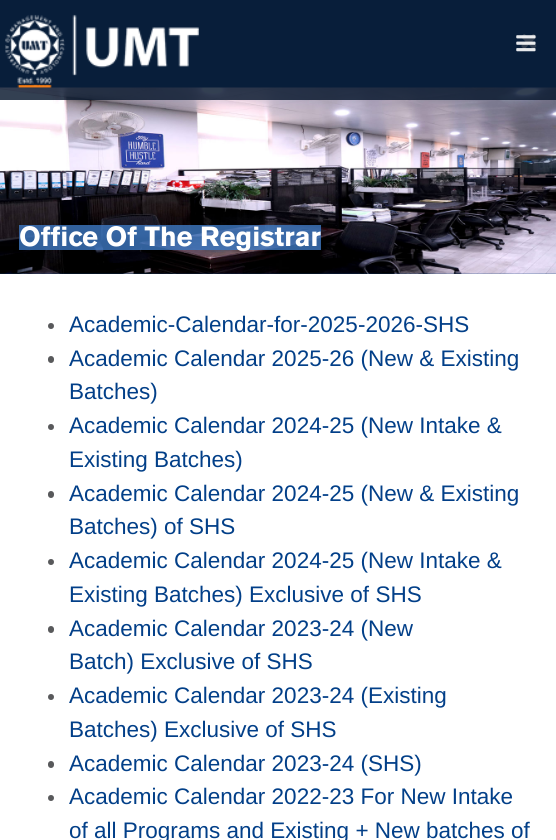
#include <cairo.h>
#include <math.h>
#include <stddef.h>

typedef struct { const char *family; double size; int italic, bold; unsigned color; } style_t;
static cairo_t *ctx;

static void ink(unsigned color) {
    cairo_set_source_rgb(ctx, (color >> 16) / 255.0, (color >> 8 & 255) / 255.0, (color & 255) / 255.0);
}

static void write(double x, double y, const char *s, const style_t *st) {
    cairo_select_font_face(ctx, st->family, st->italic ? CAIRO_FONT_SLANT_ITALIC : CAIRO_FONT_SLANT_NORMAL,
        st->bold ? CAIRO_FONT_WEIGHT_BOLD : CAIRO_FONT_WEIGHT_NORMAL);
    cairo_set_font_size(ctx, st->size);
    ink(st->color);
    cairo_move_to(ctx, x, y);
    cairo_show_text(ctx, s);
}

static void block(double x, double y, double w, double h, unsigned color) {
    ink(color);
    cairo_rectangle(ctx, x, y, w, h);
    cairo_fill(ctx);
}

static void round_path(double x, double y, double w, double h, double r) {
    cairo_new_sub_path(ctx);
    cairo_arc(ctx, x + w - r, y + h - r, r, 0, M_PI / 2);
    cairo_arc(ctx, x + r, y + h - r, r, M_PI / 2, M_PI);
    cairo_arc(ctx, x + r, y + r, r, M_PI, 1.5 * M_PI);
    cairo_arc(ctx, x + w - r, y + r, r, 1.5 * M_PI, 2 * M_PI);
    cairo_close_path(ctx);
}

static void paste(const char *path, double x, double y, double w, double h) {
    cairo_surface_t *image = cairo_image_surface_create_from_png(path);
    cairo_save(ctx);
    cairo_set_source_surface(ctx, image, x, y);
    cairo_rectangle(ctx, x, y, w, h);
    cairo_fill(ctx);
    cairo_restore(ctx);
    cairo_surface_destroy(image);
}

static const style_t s1 = {"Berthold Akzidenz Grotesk", 27.5, 0, 1, 0xffffff};
static const style_t s2 = {"Liberation Sans", 22.5, 0, 0, 0x023f88};

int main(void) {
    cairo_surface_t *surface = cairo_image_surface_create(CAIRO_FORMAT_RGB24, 556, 840);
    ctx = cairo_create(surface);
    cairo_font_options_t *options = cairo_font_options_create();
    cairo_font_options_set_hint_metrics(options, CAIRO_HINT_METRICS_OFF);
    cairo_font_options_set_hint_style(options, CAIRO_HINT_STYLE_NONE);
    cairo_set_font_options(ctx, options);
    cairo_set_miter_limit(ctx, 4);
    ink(0x114078);
    cairo_paint(ctx);
    paste("pic3.png", 521, 34, 16, 15);
    paste("pic4.png", 0, 87, 556, 187);
    cairo_set_source_rgba(ctx, 0.024, 0.09, 0.176, 0.82);
    cairo_rectangle(ctx, 0, 0, 556, 100);
    cairo_fill(ctx);
    paste("pic1.png", 516, 35, 20, 17);
    paste("pic2.png", 5, 14, 194, 74);
    cairo_set_source_rgba(ctx, 0.243, 0.471, 0.757, 0.81);
    cairo_rectangle(ctx, 19, 225, 302, 25);
    cairo_fill(ctx);
    write(19, 246, "Office Of The Registrar", &s1);
    block(0, 274, 556, 566, 0xffffff);
    ink(0x58595b);
    cairo_new_path(ctx);
    cairo_arc(ctx, 51, 326, 3, 0, 2 * M_PI);
    cairo_fill(ctx);
    write(69, 332, "Academic-Calendar-for-2025-2026-SHS", &s2);
    ink(0x58595b);
    round_path(48, 356, 6, 7, 3);
    cairo_fill(ctx);
    write(69, 366, "Academic Calendar 2025-26 (New & Existing", &s2);
    write(69, 399, "Batches)", &s2);
    ink(0x58595b);
    cairo_new_path(ctx);
    cairo_arc(ctx, 51, 427, 3, 0, 2 * M_PI);
    cairo_fill(ctx);
    write(69, 433, "Academic Calendar 2024-25 (New Intake &", &s2);
    write(69, 467, "Existing Batches)", &s2);
    ink(0x58595b);
    round_path(48, 491, 6, 7, 3);
    cairo_fill(ctx);
    write(69, 501, "Academic Calendar 2024-25 (New & Existing", &s2);
    write(69, 534, "Batches) of SHS", &s2);
    ink(0x58595b);
    cairo_new_path(ctx);
    cairo_arc(ctx, 51, 562, 3, 0, 2 * M_PI);
    cairo_fill(ctx);
    write(69, 568, "Academic Calendar 2024-25 (New Intake &", &s2);
    write(69, 602, "Existing Batches) Exclusive of SHS", &s2);
    ink(0x58595b);
    round_path(48, 626, 6, 7, 3);
    cairo_fill(ctx);
    write(69, 636, "Academic Calendar 2023-24 (New", &s2);
    write(69, 669, "Batch) Exclusive of SHS", &s2);
    ink(0x58595b);
    cairo_new_path(ctx);
    cairo_arc(ctx, 51, 697, 3, 0, 2 * M_PI);
    cairo_fill(ctx);
    write(69, 703, "Academic Calendar 2023-24 (Existing", &s2);
    write(69, 737, "Batches) Exclusive of SHS", &s2);
    ink(0x58595b);
    round_path(48, 761, 6, 7, 3);
    cairo_fill(ctx);
    write(69, 771, "Academic Calendar 2023-24 (SHS)", &s2);
    ink(0x58595b);
    cairo_new_path(ctx);
    cairo_arc(ctx, 51, 798, 3, 0, 2 * M_PI);
    cairo_fill(ctx);
    write(69, 804, "Academic Calendar 2022-23 For New Intake", &s2);
    write(69, 838, "of all Programs and Existing + New batches of", &s2);
    cairo_surface_write_to_png(surface, "screenshot.png");
    cairo_font_options_destroy(options);
    cairo_destroy(ctx);
    cairo_surface_destroy(surface);
    return 0;
}
